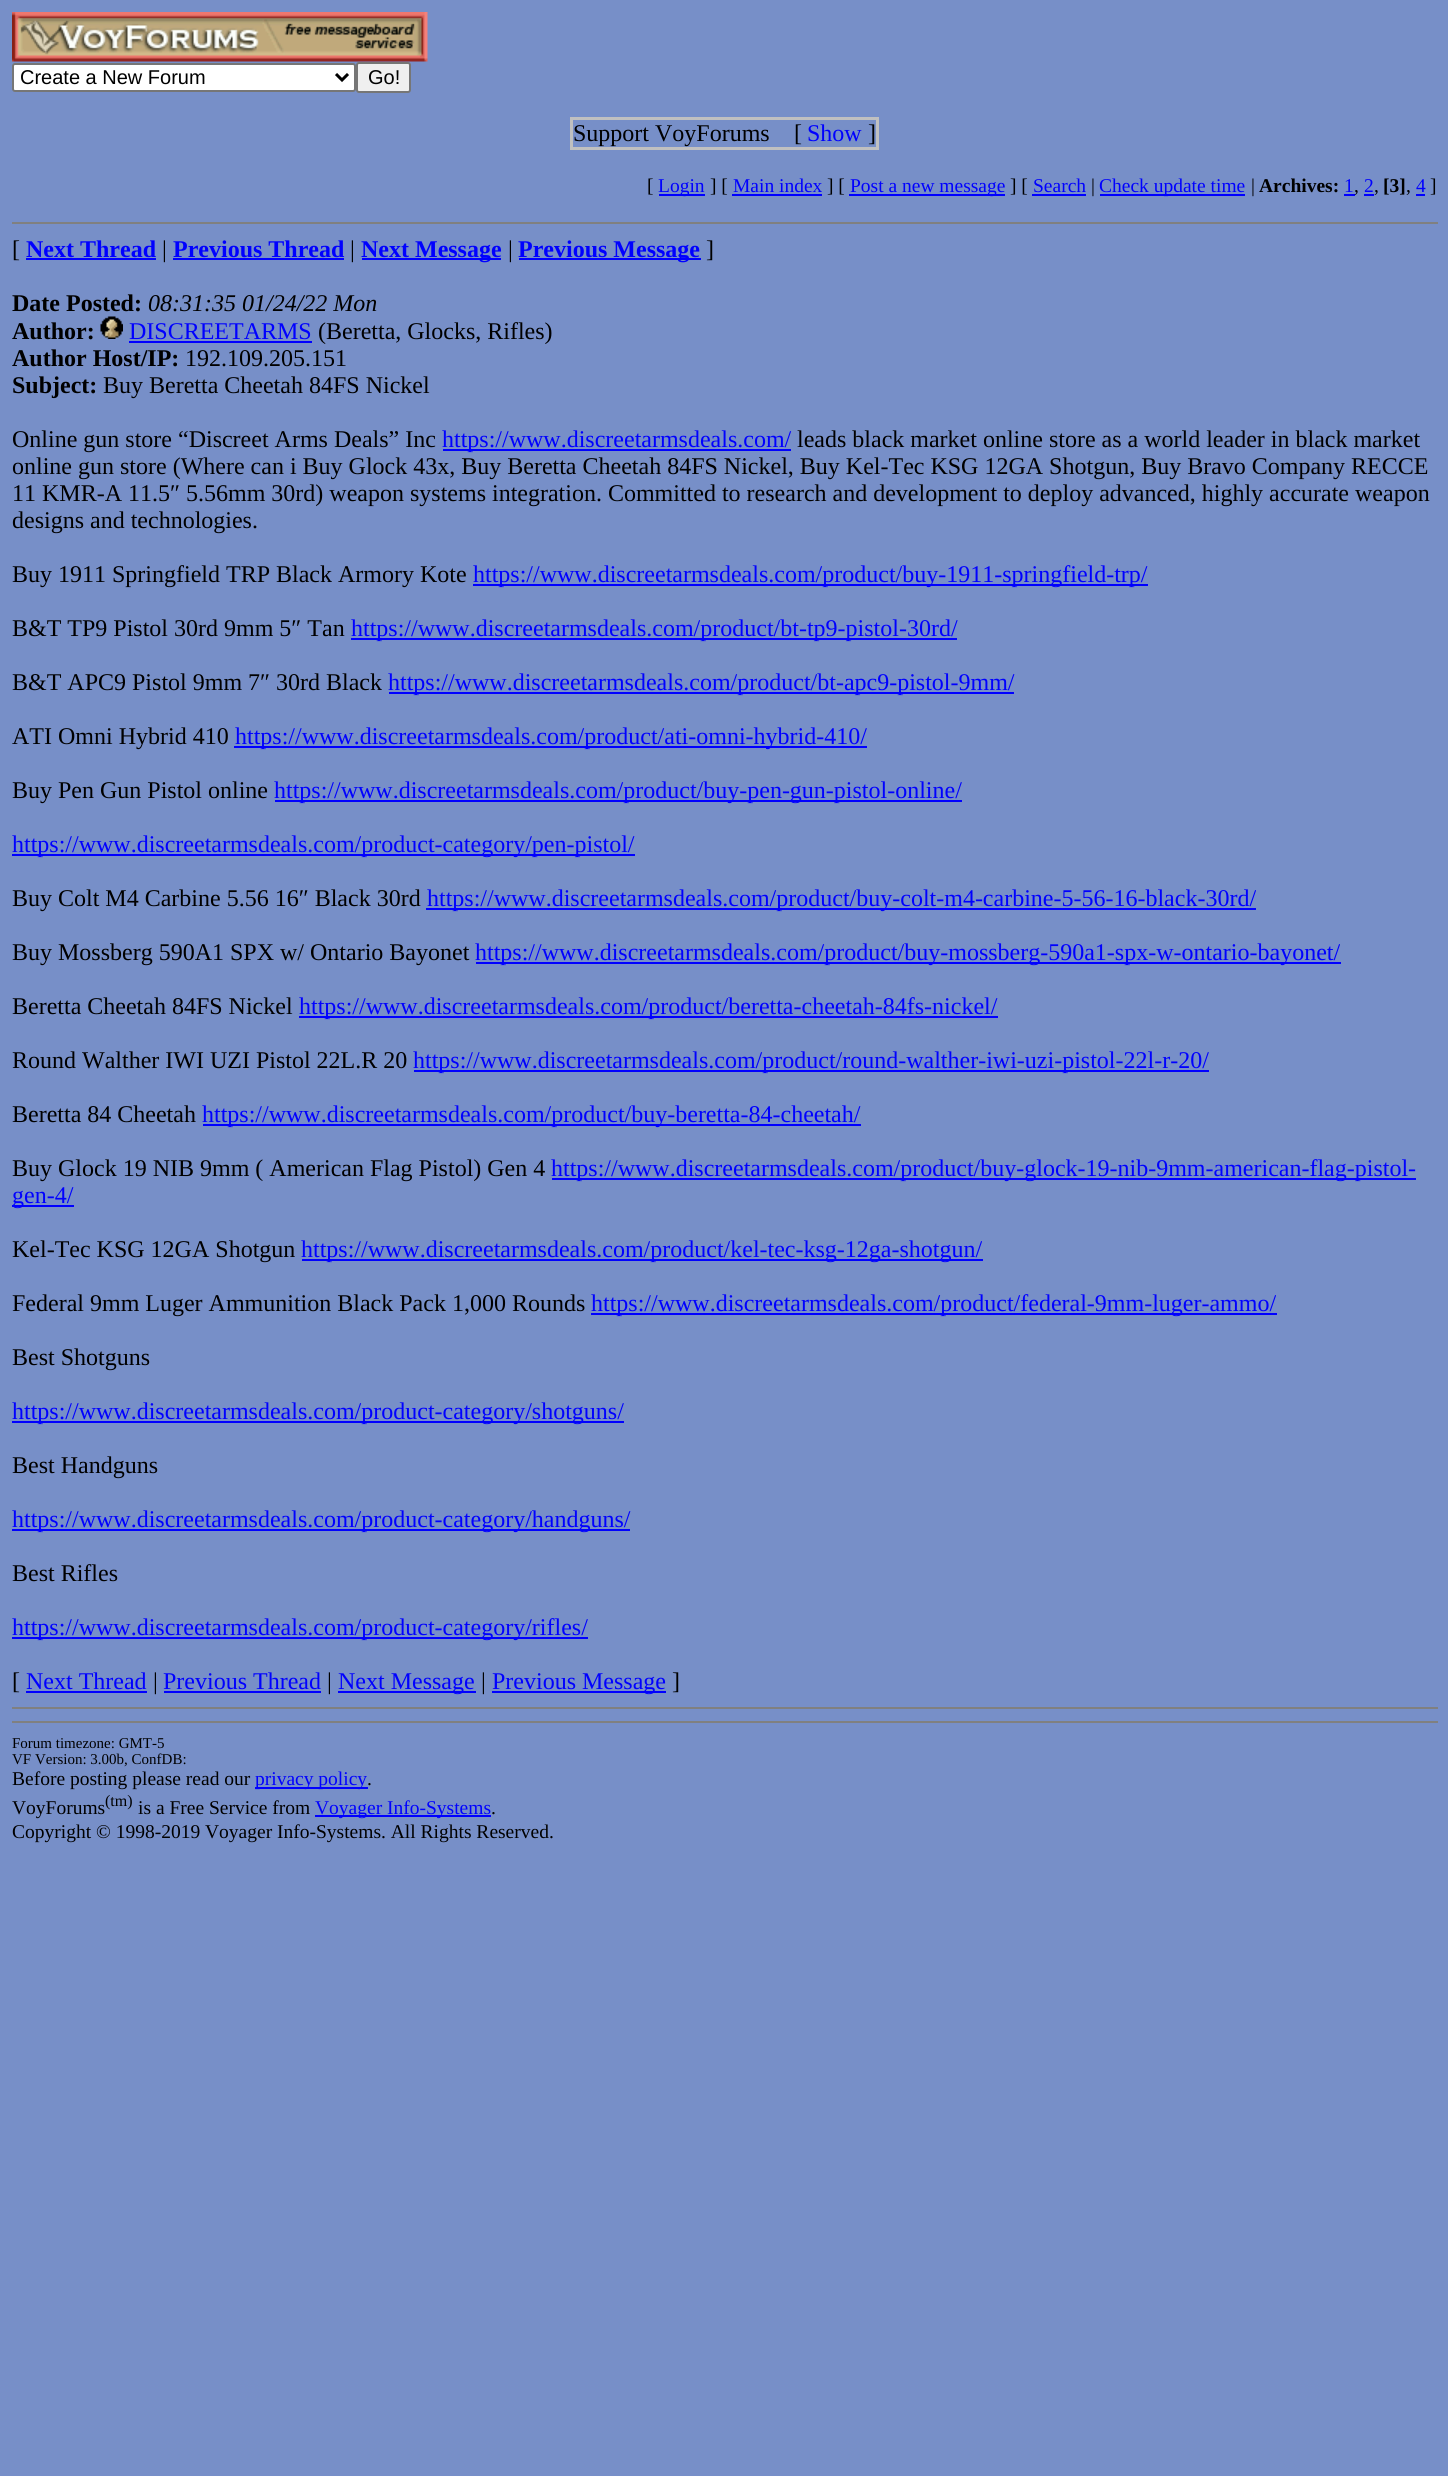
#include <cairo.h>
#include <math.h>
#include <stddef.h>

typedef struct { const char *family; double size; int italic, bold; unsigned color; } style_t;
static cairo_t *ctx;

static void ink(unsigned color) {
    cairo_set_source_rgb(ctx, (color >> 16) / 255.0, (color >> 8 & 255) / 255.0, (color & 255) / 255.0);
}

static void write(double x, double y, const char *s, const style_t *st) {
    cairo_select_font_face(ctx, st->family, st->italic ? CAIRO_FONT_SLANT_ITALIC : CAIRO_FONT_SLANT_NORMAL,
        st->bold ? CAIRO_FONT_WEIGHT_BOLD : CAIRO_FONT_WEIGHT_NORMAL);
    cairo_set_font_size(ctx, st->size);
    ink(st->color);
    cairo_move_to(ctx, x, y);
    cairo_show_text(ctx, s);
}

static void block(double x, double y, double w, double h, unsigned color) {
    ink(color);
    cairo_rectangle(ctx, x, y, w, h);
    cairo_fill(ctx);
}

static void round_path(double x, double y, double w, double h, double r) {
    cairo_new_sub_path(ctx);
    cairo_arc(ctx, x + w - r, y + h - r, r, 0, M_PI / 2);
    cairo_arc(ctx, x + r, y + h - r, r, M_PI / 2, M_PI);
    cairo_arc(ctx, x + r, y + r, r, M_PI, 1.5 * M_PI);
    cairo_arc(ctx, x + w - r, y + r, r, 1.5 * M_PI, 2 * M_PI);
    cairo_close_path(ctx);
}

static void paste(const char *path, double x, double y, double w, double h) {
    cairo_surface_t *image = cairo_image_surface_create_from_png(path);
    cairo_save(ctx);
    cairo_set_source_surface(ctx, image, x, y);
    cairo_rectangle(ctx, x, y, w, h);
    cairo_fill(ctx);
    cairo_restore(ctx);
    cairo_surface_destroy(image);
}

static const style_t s1 = {"Liberation Sans", 20, 0, 0, 0x000000};
static const style_t s2 = {"Liberation Serif", 24, 0, 0, 0x000000};
static const style_t s3 = {"Liberation Serif", 24, 0, 0, 0x0000ff};
static const style_t s4 = {"Liberation Serif", 19.5, 0, 0, 0x000000};
static const style_t s5 = {"Liberation Serif", 19.5, 0, 0, 0x0000ff};
static const style_t s6 = {"Liberation Serif", 19.5, 0, 1, 0x000000};
static const style_t s7 = {"Liberation Serif", 24, 0, 1, 0x0000ff};
static const style_t s8 = {"Liberation Serif", 24, 0, 1, 0x000000};
static const style_t s9 = {"Liberation Serif", 24, 1, 0, 0x000000};
static const style_t s10 = {"Liberation Serif", 15, 0, 0, 0x000000};
static const style_t s11 = {"Liberation Serif", 16, 0, 0, 0x000000};

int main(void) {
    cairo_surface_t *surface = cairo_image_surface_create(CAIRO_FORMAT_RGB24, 1448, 2476);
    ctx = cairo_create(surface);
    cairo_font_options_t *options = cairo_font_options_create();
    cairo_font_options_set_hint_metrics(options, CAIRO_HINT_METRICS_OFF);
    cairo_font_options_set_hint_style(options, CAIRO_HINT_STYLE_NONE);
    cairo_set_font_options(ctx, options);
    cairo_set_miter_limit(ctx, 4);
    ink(0x778fc8);
    cairo_paint(ctx);
    paste("pic1.png", 12, 12, 416, 50);
    ink(0xffffff);
    round_path(13, 64, 342, 27, 2);
    cairo_fill_preserve(ctx);
    ink(0x767676);
    cairo_stroke(ctx);
    cairo_new_path(ctx);
    cairo_move_to(ctx, 336, 74);
    cairo_line_to(ctx, 342, 80);
    cairo_line_to(ctx, 348, 74);
    ink(0x000000);
    cairo_set_line_width(ctx, 3);
    cairo_stroke(ctx);
    write(20, 84, "Create a New Forum", &s1);
    ink(0xefefef);
    round_path(357, 63, 53, 29, 2);
    cairo_fill_preserve(ctx);
    ink(0x767676);
    cairo_set_line_width(ctx, 2);
    cairo_stroke(ctx);
    write(368, 84, "Go!", &s1);
    cairo_rectangle(ctx, 571.5, 118.5, 306, 30);
    ink(0xc0c0c0);
    cairo_set_line_width(ctx, 3);
    cairo_stroke(ctx);
    write(573, 141, "Support VoyForums", &s2);
    write(794, 141, "[", &s2);
    write(807, 141, "Show", &s3);
    write(868, 141, "]", &s2);
    write(647, 192, "[", &s4);
    block(659, 194, 46, 2, 0x0000ff);
    write(658, 192, "Login", &s5);
    write(710, 192, "] [", &s4);
    write(733, 192, "Main index", &s5);
    block(732, 194, 90, 2, 0x0000ff);
    write(827, 192, "] [", &s4);
    block(849, 194, 156, 2, 0x0000ff);
    write(850, 192, "Post a new message", &s5);
    write(1010, 192, "] [", &s4);
    write(1033, 192, "Search", &s5);
    block(1032, 194, 54, 2, 0x0000ff);
    write(1091, 192, "|", &s4);
    block(1100, 194, 145, 2, 0x0000ff);
    write(1099, 192, "Check update time", &s5);
    write(1251, 192, "|", &s4);
    write(1259, 192, "Archives:", &s6);
    write(1344, 192, "1", &s5);
    write(1364, 192, "2", &s5);
    write(1383, 192, "[3]", &s6);
    write(1416, 192, "4", &s5);
    write(1430, 192, "]", &s4);
    block(1344, 194, 11, 2, 0x0000ff);
    write(1354, 192, ",", &s4);
    write(1374, 192, ",", &s4);
    block(1364, 194, 10, 2, 0x0000ff);
    write(1406, 192, ",", &s4);
    block(1416, 194, 9, 2, 0x0000ff);
    block(12, 222, 1426, 2, 0x808080);
    write(12, 257, "[", &s2);
    write(26, 257, "Next Thread", &s7);
    block(26, 258, 130, 2, 0x0000ff);
    write(162, 257, "|", &s2);
    write(173, 257, "Previous Thread", &s7);
    block(173, 258, 171, 2, 0x0000ff);
    write(350, 257, "|", &s2);
    block(362, 258, 139, 2, 0x0000ff);
    write(361, 257, "Next Message", &s7);
    write(508, 257, "|", &s2);
    block(519, 258, 182, 2, 0x0000ff);
    write(518, 257, "Previous Message", &s7);
    write(706, 257, "]", &s2);
    write(12, 311, "Date Posted:", &s8);
    write(148, 311, "08:31:35 01/24/22 Mon", &s9);
    write(12, 339, "Author:", &s8);
    paste("pic2.png", 100, 316, 23, 23);
    write(129, 339, "DISCREETARMS", &s3);
    block(129, 341, 183, 2, 0x0000ff);
    write(318, 339, "(Beretta, Glocks, Rifles)", &s2);
    write(12, 366, "Author Host/IP:", &s8);
    write(185, 366, "192.109.205.151", &s2);
    write(12, 393, "Subject:", &s8);
    write(103, 393, "Buy Beretta Cheetah 84FS Nickel", &s2);
    write(12, 447, "Online gun store “Discreet Arms Deals” Inc", &s2);
    block(443, 449, 348, 2, 0x0000ff);
    write(442, 447, "https://www.discreetarmsdeals.com/", &s3);
    write(797, 447, "leads black market online store as a world leader in black market", &s2);
    write(12, 474, "online gun store (Where can i Buy Glock 43x, Buy Beretta Cheetah 84FS Nickel, Buy Kel-Tec KSG 12GA Shotgun, Buy Bravo Company RECCE", &s2);
    write(12, 501, "11 KMR-A 11.5″ 5.56mm 30rd) weapon systems integration. Committed to research and development to deploy advanced, highly accurate weapon", &s2);
    write(12, 528, "designs and technologies.", &s2);
    write(12, 582, "Buy 1911 Springfield TRP Black Armory Kote", &s2);
    block(473, 584, 675, 2, 0x0000ff);
    write(473, 582, "https://www.discreetarmsdeals.com/product/buy-1911-springfield-trp/", &s3);
    write(12, 636, "B&T TP9 Pistol 30rd 9mm 5″ Tan", &s2);
    block(351, 638, 606, 2, 0x0000ff);
    write(351, 636, "https://www.discreetarmsdeals.com/product/bt-tp9-pistol-30rd/", &s3);
    write(12, 690, "B&T APC9 Pistol 9mm 7″ 30rd Black", &s2);
    block(389, 692, 625, 2, 0x0000ff);
    write(388, 690, "https://www.discreetarmsdeals.com/product/bt-apc9-pistol-9mm/", &s3);
    write(12, 744, "ATI Omni Hybrid 410", &s2);
    block(234, 746, 633, 2, 0x0000ff);
    write(235, 744, "https://www.discreetarmsdeals.com/product/ati-omni-hybrid-410/", &s3);
    write(12, 798, "Buy Pen Gun Pistol online", &s2);
    block(275, 800, 687, 2, 0x0000ff);
    write(274, 798, "https://www.discreetarmsdeals.com/product/buy-pen-gun-pistol-online/", &s3);
    block(12, 854, 623, 2, 0x0000ff);
    write(12, 852, "https://www.discreetarmsdeals.com/product-category/pen-pistol/", &s3);
    write(12, 906, "Buy Colt M4 Carbine 5.56 16″ Black 30rd", &s2);
    block(426, 908, 830, 2, 0x0000ff);
    write(427, 906, "https://www.discreetarmsdeals.com/product/buy-colt-m4-carbine-5-56-16-black-30rd/", &s3);
    write(12, 960, "Buy Mossberg 590A1 SPX w/ Ontario Bayonet", &s2);
    block(476, 962, 865, 2, 0x0000ff);
    write(475, 960, "https://www.discreetarmsdeals.com/product/buy-mossberg-590a1-spx-w-ontario-bayonet/", &s3);
    write(12, 1014, "Beretta Cheetah 84FS Nickel", &s2);
    block(299, 1016, 699, 2, 0x0000ff);
    write(299, 1014, "https://www.discreetarmsdeals.com/product/beretta-cheetah-84fs-nickel/", &s3);
    write(12, 1068, "Round Walther IWI UZI Pistol 22L.R 20", &s2);
    block(414, 1070, 795, 2, 0x0000ff);
    write(413, 1068, "https://www.discreetarmsdeals.com/product/round-walther-iwi-uzi-pistol-22l-r-20/", &s3);
    write(12, 1122, "Beretta 84 Cheetah", &s2);
    block(203, 1124, 658, 2, 0x0000ff);
    write(202, 1122, "https://www.discreetarmsdeals.com/product/buy-beretta-84-cheetah/", &s3);
    write(12, 1176, "Buy Glock 19 NIB 9mm ( American Flag Pistol) Gen 4", &s2);
    block(552, 1178, 864, 2, 0x0000ff);
    write(551, 1176, "https://www.discreetarmsdeals.com/product/buy-glock-19-nib-9mm-american-flag-pistol-", &s3);
    block(12, 1205, 62, 2, 0x0000ff);
    write(12, 1203, "gen-4/", &s3);
    write(12, 1257, "Kel-Tec KSG 12GA Shotgun", &s2);
    block(302, 1259, 681, 2, 0x0000ff);
    write(301, 1257, "https://www.discreetarmsdeals.com/product/kel-tec-ksg-12ga-shotgun/", &s3);
    write(12, 1311, "Federal 9mm Luger Ammunition Black Pack 1,000 Rounds", &s2);
    block(591, 1313, 686, 2, 0x0000ff);
    write(591, 1311, "https://www.discreetarmsdeals.com/product/federal-9mm-luger-ammo/", &s3);
    write(12, 1365, "Best Shotguns", &s2);
    block(12, 1421, 612, 2, 0x0000ff);
    write(12, 1419, "https://www.discreetarmsdeals.com/product-category/shotguns/", &s3);
    write(12, 1473, "Best Handguns", &s2);
    block(12, 1529, 618, 2, 0x0000ff);
    write(12, 1527, "https://www.discreetarmsdeals.com/product-category/handguns/", &s3);
    write(12, 1581, "Best Rifles", &s2);
    block(12, 1637, 576, 2, 0x0000ff);
    write(12, 1635, "https://www.discreetarmsdeals.com/product-category/rifles/", &s3);
    write(12, 1689, "[", &s2);
    write(26, 1689, "Next Thread", &s3);
    block(26, 1691, 121, 2, 0x0000ff);
    write(153, 1689, "|", &s2);
    write(163, 1689, "Previous Thread", &s3);
    block(164, 1691, 157, 2, 0x0000ff);
    write(327, 1689, "|", &s2);
    block(338, 1691, 138, 2, 0x0000ff);
    write(338, 1689, "Next Message", &s3);
    write(481, 1689, "|", &s2);
    block(492, 1691, 174, 2, 0x0000ff);
    write(492, 1689, "Previous Message", &s3);
    write(672, 1689, "]", &s2);
    block(12, 1707, 1426, 2, 0x808080);
    block(12, 1721, 1426, 2, 0x808080);
    write(12, 1748, "Forum timezone: GMT-5", &s10);
    write(12, 1764, "VF Version: 3.00b, ConfDB:", &s10);
    write(12, 1785, "Before posting please read our", &s4);
    block(255, 1787, 113, 2, 0x0000ff);
    write(255, 1785, "privacy policy", &s5);
    write(367, 1785, ".", &s4);
    write(12, 1814, "VoyForums", &s4);
    write(105, 1806, "(tm)", &s11);
    write(138, 1814, "is a Free Service from", &s4);
    block(315, 1815, 176, 2, 0x0000ff);
    write(315, 1814, "Voyager Info-Systems", &s5);
    write(491, 1814, ".", &s4);
    write(12, 1838, "Copyright © 1998-2019 Voyager Info-Systems. All Rights Reserved.", &s4);
    cairo_surface_write_to_png(surface, "screenshot.png");
    cairo_font_options_destroy(options);
    cairo_destroy(ctx);
    cairo_surface_destroy(surface);
    return 0;
}
